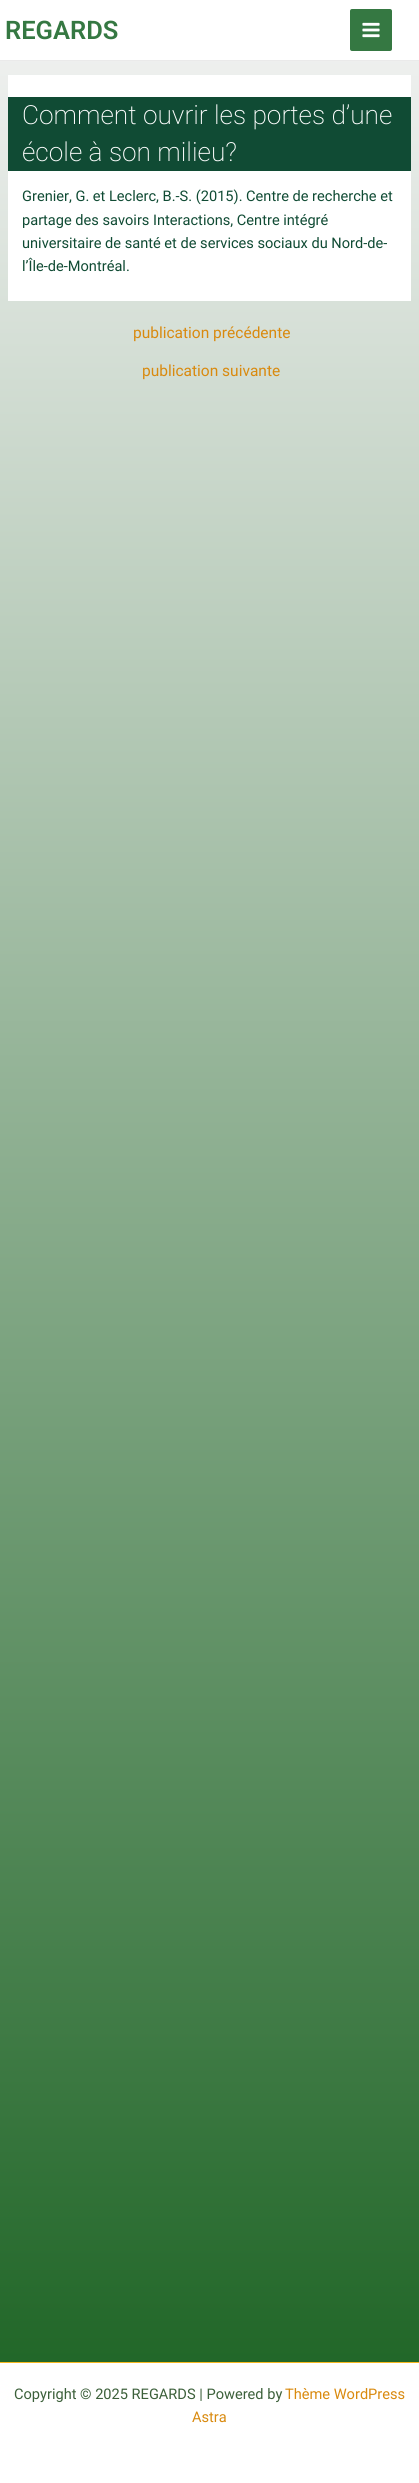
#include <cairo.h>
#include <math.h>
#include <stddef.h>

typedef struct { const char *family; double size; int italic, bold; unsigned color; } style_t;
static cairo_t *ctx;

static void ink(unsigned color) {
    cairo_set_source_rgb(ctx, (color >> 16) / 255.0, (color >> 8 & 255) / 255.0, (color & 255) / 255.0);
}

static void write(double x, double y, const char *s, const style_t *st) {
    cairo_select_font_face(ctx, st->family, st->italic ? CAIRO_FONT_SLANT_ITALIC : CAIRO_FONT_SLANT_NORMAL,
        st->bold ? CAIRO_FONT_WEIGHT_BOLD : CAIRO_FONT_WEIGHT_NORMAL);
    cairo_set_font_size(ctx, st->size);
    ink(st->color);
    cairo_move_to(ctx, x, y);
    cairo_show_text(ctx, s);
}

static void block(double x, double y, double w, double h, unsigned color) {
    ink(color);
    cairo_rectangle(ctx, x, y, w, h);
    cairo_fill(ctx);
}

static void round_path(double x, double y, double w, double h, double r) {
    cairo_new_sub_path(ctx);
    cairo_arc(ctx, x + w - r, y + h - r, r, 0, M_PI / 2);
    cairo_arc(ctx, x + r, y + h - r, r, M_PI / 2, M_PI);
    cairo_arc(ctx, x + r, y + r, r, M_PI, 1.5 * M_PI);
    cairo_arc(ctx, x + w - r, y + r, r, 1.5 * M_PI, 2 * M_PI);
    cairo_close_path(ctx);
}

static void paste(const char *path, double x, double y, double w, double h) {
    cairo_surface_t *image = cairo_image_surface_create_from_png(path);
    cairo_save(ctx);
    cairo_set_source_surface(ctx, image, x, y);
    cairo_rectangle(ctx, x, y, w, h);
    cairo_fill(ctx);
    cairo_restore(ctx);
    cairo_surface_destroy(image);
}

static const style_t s1 = {"Roboto SemiBold", 25.5, 0, 0, 0x357842};
static const style_t s2 = {"Roboto ExtraLight", 26.25, 0, 0, 0xffffff};
static const style_t s3 = {"Roboto", 14.6, 0, 0, 0x104b34};
static const style_t s4 = {"Roboto", 15.5, 0, 0, 0xd98a0f};
static const style_t s5 = {"Roboto", 14.6, 0, 0, 0x3c603a};
static const style_t s6 = {"Roboto", 14.6, 0, 0, 0xd98a0f};

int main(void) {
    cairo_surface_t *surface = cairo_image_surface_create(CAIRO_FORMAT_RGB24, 419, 2483);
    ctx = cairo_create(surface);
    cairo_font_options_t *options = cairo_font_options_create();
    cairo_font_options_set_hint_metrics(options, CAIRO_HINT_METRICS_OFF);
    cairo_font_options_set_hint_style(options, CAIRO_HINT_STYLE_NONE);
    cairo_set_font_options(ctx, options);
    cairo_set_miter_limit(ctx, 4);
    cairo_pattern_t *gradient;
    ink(0xffffff);
    cairo_paint(ctx);
    gradient = cairo_pattern_create_linear(210, 2483, 210, 0);
    cairo_pattern_add_color_stop_rgba(gradient, 0, 0.09, 0.376, 0.118, 1);
    cairo_pattern_add_color_stop_rgba(gradient, 1, 0.953, 0.953, 0.953, 1);
    cairo_set_source(ctx, gradient);
    cairo_pattern_destroy(gradient);
    cairo_rectangle(ctx, 0, 61, 419, 2301);
    cairo_fill(ctx);
    block(0, 60, 419, 1, 0xeaeaea);
    write(5, 39, "REGARDS", &s1);
    round_path(350, 9, 42, 42, 2);
    cairo_fill(ctx);
    paste("pic1.png", 362, 22, 18, 16);
    block(8, 75, 403, 226, 0xffffff);
    block(8, 97, 403, 74, 0x104b34);
    write(22, 124, "Comment ouvrir les portes d’une", &s2);
    write(22, 161, "école à son milieu?", &s2);
    write(22, 201, "Grenier, G. et Leclerc, B.-S. (2015). Centre de recherche et", &s3);
    write(22, 225, "partage des savoirs Interactions, Centre intégré", &s3);
    write(22, 248, "universitaire de santé et de services sociaux du Nord-de-", &s3);
    write(22, 271, "l’Île-de-Montréal.", &s3);
    write(133, 338, "publication précédente", &s4);
    write(142, 376, "publication suivante", &s4);
    block(0, 2362, 419, 1, 0xf6b81f);
    write(14, 2399, "Copyright © 2025 REGARDS | Powered by", &s5);
    write(285, 2399, "Thème WordPress", &s6);
    write(192, 2422, "Astra", &s6);
    cairo_surface_write_to_png(surface, "screenshot.png");
    cairo_font_options_destroy(options);
    cairo_destroy(ctx);
    cairo_surface_destroy(surface);
    return 0;
}
